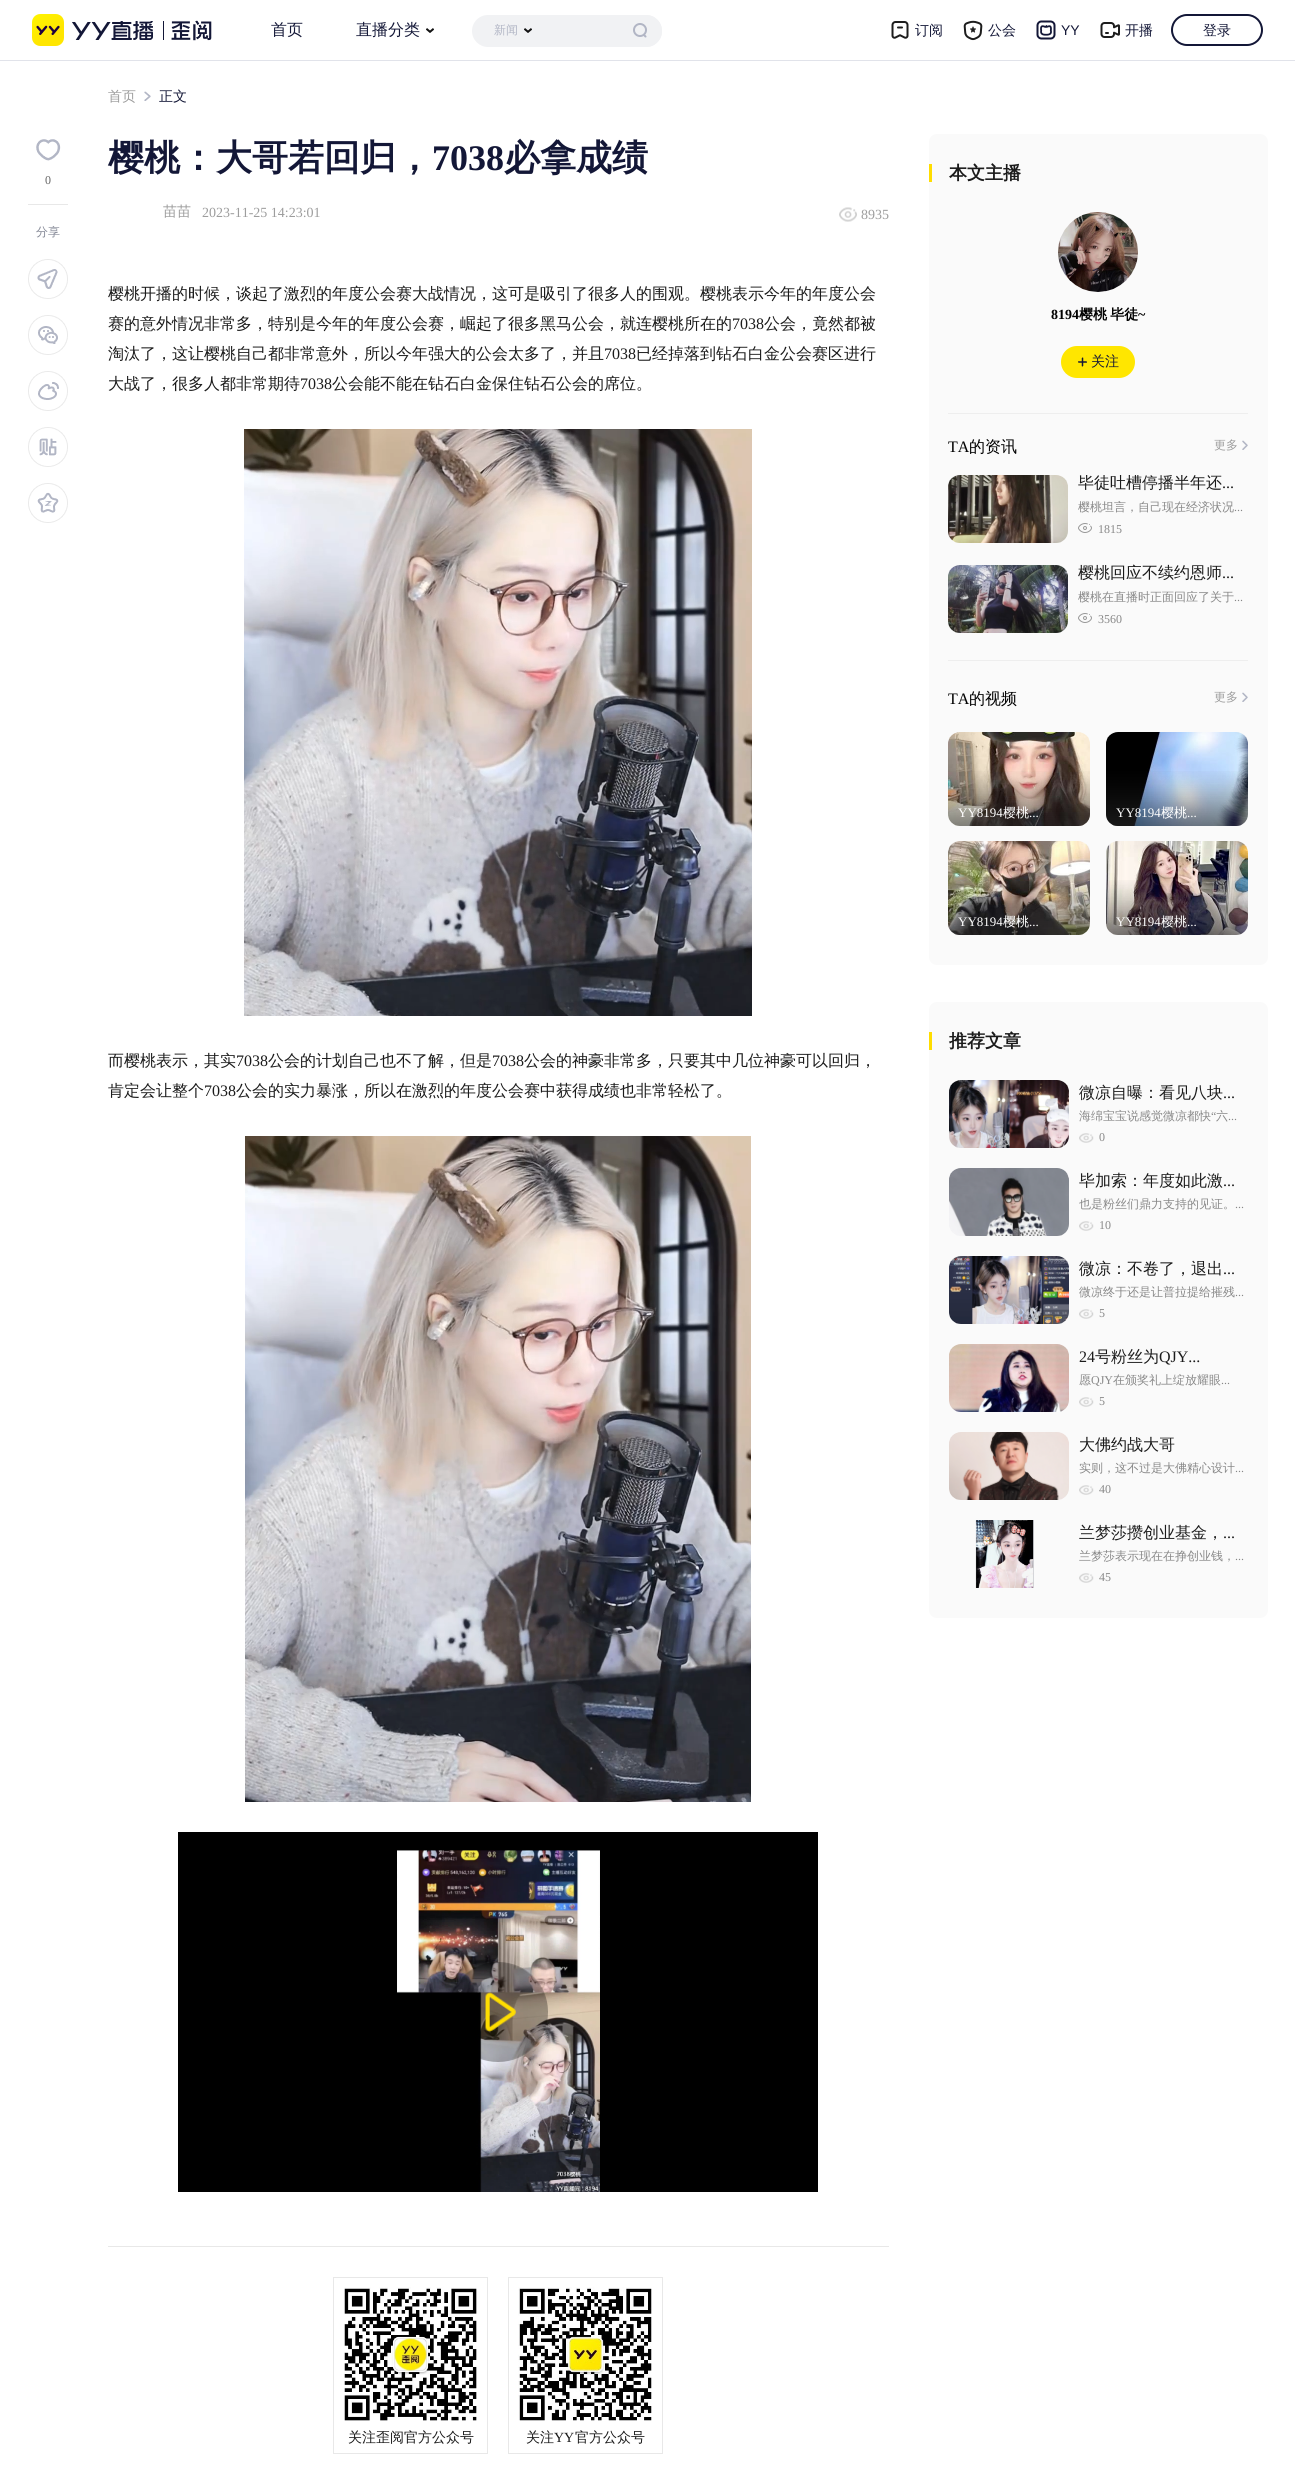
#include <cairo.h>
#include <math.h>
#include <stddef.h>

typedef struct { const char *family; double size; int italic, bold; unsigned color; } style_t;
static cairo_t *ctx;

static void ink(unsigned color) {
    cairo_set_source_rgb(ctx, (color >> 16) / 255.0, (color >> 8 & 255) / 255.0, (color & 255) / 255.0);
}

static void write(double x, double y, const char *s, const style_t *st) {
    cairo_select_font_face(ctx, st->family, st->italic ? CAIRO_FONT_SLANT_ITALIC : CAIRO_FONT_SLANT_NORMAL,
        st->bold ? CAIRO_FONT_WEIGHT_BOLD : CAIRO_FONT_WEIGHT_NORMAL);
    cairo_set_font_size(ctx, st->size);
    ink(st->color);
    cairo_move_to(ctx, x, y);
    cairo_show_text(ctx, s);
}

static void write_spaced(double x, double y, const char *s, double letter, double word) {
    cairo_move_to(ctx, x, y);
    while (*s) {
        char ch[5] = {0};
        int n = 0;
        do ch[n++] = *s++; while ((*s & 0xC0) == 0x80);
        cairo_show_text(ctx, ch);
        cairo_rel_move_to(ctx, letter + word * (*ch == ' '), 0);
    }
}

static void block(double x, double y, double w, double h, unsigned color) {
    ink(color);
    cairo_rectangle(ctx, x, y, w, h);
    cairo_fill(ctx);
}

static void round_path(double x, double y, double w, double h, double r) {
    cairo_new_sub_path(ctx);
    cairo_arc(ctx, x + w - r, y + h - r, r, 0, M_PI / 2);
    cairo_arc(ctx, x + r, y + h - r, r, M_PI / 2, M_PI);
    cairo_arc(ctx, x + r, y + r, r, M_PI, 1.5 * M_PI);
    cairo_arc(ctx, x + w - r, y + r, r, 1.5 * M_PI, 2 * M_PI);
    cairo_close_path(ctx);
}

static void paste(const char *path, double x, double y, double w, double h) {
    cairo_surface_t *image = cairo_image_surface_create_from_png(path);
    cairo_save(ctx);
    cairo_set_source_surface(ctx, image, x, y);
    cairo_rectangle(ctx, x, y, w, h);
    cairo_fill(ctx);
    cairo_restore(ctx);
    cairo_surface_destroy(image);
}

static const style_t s1 = {"WenQuanYi Zen Hei Medium", 16, 0, 0, 0x131737};
static const style_t s2 = {"WenQuanYi Zen Hei Medium", 12, 0, 0, 0xb2b6c5};
static const style_t s3 = {"WenQuanYi Zen Hei Medium", 14, 0, 0, 0x131737};
static const style_t s4 = {"Liberation Sans", 14, 0, 0, 0x131737};
static const style_t s5 = {"WenQuanYi Zen Hei Medium", 14, 0, 0, 0x9d9d9d};
static const style_t s6 = {"Liberation Serif", 12, 0, 0, 0x666666};
static const style_t s7 = {"WenQuanYi Zen Hei Medium", 12, 0, 0, 0x848896};
static const style_t s8 = {"WenQuanYi Zen Hei", 36, 0, 1, 0x131737};
static const style_t s9 = {"Liberation Serif", 36, 0, 1, 0x131737};
static const style_t s10 = {"Liberation Serif", 14, 0, 0, 0x9d9d9d};
static const style_t s11 = {"WenQuanYi Zen Hei Medium", 16, 0, 0, 0x1b1b1b};
static const style_t s12 = {"Liberation Serif", 16, 0, 0, 0x1b1b1b};
static const style_t s13 = {"WenQuanYi Zen Hei Medium", 14, 0, 0, 0x1b1b1b};
static const style_t s14 = {"Liberation Serif", 14, 0, 0, 0x1b1b1b};
static const style_t s15 = {"WenQuanYi Zen Hei", 18, 0, 1, 0x1b1b1b};
static const style_t s16 = {"Liberation Serif", 14, 0, 1, 0x000000};
static const style_t s17 = {"Liberation Serif", 16, 0, 0, 0x000000};
static const style_t s18 = {"WenQuanYi Zen Hei Medium", 16, 0, 0, 0x000000};
static const style_t s19 = {"WenQuanYi Zen Hei Medium", 12, 0, 0, 0x9d9d9d};
static const style_t s20 = {"WenQuanYi Zen Hei Medium", 12, 0, 0, 0x888888};
static const style_t s21 = {"Liberation Serif", 12, 0, 0, 0x888888};
static const style_t s22 = {"Liberation Serif", 13, 0, 0, 0xffffff};
static const style_t s23 = {"WenQuanYi Zen Hei Medium", 13, 0, 0, 0xffffff};

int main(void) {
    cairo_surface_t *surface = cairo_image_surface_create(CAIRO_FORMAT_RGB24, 1295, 2478);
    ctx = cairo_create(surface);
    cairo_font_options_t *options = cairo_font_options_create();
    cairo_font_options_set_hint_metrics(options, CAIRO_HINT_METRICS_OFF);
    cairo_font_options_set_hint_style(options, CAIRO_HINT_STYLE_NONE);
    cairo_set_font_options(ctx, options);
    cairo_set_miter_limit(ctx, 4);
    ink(0xffffff);
    cairo_paint(ctx);
    block(0, 60, 1295, 1, 0xe1e3ea);
    paste("pic1.png", 32, 14, 121, 32);
    paste("pic2.png", 163, 20, 49, 21);
    write(271, 35, "首页", &s1);
    write(356, 35, "直播分类", &s1);
    paste("pic3.png", 426, 28, 8, 5);
    ink(0xf1f2f4);
    round_path(472, 15, 190, 32, 16);
    cairo_fill(ctx);
    cairo_new_path(ctx);
    cairo_move_to(ctx, 602, 15);
    cairo_line_to(ctx, 646, 15);
    cairo_curve_to(ctx, 655, 15, 662, 22, 662, 31);
    cairo_curve_to(ctx, 662, 40, 655, 47, 646, 47);
    cairo_line_to(ctx, 602, 47);
    cairo_close_path(ctx);
    cairo_fill(ctx);
    paste("pic4.png", 633, 23, 14, 15);
    write(494, 34, "新闻", &s2);
    paste("pic5.png", 524, 28, 8, 5);
    paste("pic6.png", 891, 21, 18, 18);
    write(915, 35, "订阅", &s3);
    paste("pic7.png", 963, 20, 20, 21);
    write(988, 35, "公会", &s3);
    paste("pic8.png", 1036, 20, 20, 20);
    write(1061, 35, "YY", &s4);
    paste("pic9.png", 1100, 22, 20, 16);
    write(1125, 35, "开播", &s3);
    round_path(1172, 15, 90, 30, 15);
    cairo_stroke(ctx);
    write(1203, 35, "登录", &s3);
    write(108, 101, "首页", &s5);
    paste("pic10.png", 144, 91, 7, 10);
    write(159, 101, "正文", &s3);
    block(28, 204, 40, 1, 0xe8e8e8);
    paste("pic11.png", 36, 139, 25, 22);
    write(45, 184, "0", &s6);
    write(36, 236, "分享", &s7);
    paste("pic12.png", 28, 259, 40, 40);
    paste("pic13.png", 28, 315, 40, 40);
    paste("pic14.png", 28, 371, 40, 40);
    paste("pic15.png", 28, 427, 40, 40);
    paste("pic16.png", 28, 483, 40, 40);
    write(108, 170, "樱桃：大哥若回归，", &s8);
    write(432, 170, "7038", &s9);
    write(504, 170, "必拿成绩", &s8);
    write(163, 216, "苗苗", &s5);
    write(202, 217, "2023-11-25 14:23:01", &s10);
    paste("pic17.png", 839, 207, 18, 15);
    write(861, 219, "8935", &s10);
    write(108, 299, "樱桃开播的时候，谈起了激烈的年度公会赛大战情况，这可是吸引了很多人的围观。樱桃表示今年的年度公会", &s11);
    write(108, 329, "赛的意外情况非常多，特别是今年的年度公会赛，崛起了很多黑马公会，就连樱桃所在的", &s11);
    write(732, 329, "7038", &s12);
    write(764, 329, "公会，竟然都被", &s11);
    write(108, 359, "淘汰了，这让樱桃自己都非常意外，所以今年强大的公会太多了，并且", &s11);
    write(604, 359, "7038", &s12);
    write(636, 359, "已经掉落到钻石白金公会赛区进行", &s11);
    write(108, 389, "大战了，很多人都非常期待", &s11);
    write(300, 389, "7038", &s12);
    write(332, 389, "公会能不能在钻石白金保住钻石公会的席位。", &s11);
    paste("pic18.png", 244, 429, 508, 587);
    write(108, 1066, "而樱桃表示，其实", &s11);
    write(236, 1066, "7038", &s12);
    write(268, 1066, "公会的计划自己也不了解，但是", &s11);
    write(492, 1066, "7038", &s12);
    write(524, 1066, "公会的神豪非常多，只要其中几位神豪可以回归，", &s11);
    write(108, 1096, "肯定会让整个", &s11);
    write(204, 1096, "7038", &s12);
    write(236, 1096, "公会的实力暴涨，所以在激烈的年度公会赛中获得成绩也非常轻松了。", &s11);
    paste("pic19.png", 245, 1136, 506, 666);
    block(178, 1832, 640, 360, 0x000000);
    paste("pic20.png", 397, 1850, 203, 342);
    paste("pic21.png", 452, 1962, 96, 100);
    block(108, 2246, 781, 1, 0xe8e8e8);
    cairo_rectangle(ctx, 333.5, 2277.5, 154, 176);
    cairo_set_line_width(ctx, 1);
    cairo_stroke(ctx);
    paste("pic22.png", 344, 2287, 133, 134);
    write(348, 2442, "关注歪阅官方公众号", &s13);
    cairo_rectangle(ctx, 508.5, 2277.5, 154, 176);
    ink(0xe8e8e8);
    cairo_stroke(ctx);
    paste("pic23.png", 518, 2287, 134, 134);
    write(526, 2442, "关注", &s13);
    write(554, 2442, "YY", &s14);
    write(575, 2442, "官方公众号", &s13);
    ink(0xfafafa);
    round_path(929, 134, 339, 831, 8);
    cairo_fill(ctx);
    block(929, 164, 3, 18, 0xffdd00);
    write(949, 179, "本文主播", &s15);
    paste("pic24.png", 1058, 212, 80, 80);
    write(1051, 319, "8194", &s16);
    cairo_select_font_face(ctx, "WenQuanYi Zen Hei", CAIRO_FONT_SLANT_NORMAL, CAIRO_FONT_WEIGHT_BOLD);
    write_spaced(1079, 319, "樱桃 毕徒", 0, -1);
    write(1138, 319, "~", &s16);
    ink(0xffe600);
    round_path(1061, 346, 74, 32, 16);
    cairo_fill(ctx);
    paste("pic25.png", 1078, 357, 9, 10);
    write(1091, 366, "关注", &s3);
    block(948, 413, 300, 1, 0xeeeeee);
    write(948, 452, "TA", &s17);
    write(969, 452, "的资讯", &s18);
    paste("pic26.png", 1242, 440, 6, 10);
    write(1214, 449, "更多", &s19);
    paste("pic27.png", 948, 475, 120, 68);
    cairo_save(ctx);
    cairo_rectangle(ctx, 1078, 475, 170, 16);
    cairo_clip(ctx);
    write(1078, 488, "毕徒吐槽停播半年还", &s11);
    cairo_restore(ctx);
    write(1222, 488, "...", &s12);
    write(1078, 511, "樱桃坦言，自己现在经济状况", &s20);
    write(1234, 511, "...", &s21);
    paste("pic28.png", 1078, 523, 14, 10);
    write(1098, 533, "1815", &s21);
    paste("pic29.png", 948, 565, 120, 68);
    write(1078, 578, "樱桃回应不续约恩师", &s11);
    write(1222, 578, "...", &s12);
    write(1078, 601, "樱桃在直播时正面回应了关于", &s20);
    write(1234, 601, "...", &s21);
    paste("pic28.png", 1078, 613, 14, 10);
    write(1098, 623, "3560", &s21);
    block(948, 660, 300, 1, 0xeeeeee);
    write(948, 704, "TA", &s17);
    write(969, 704, "的视频", &s18);
    paste("pic26.png", 1242, 692, 6, 10);
    write(1214, 701, "更多", &s19);
    paste("pic30.png", 948, 732, 142, 94);
    paste("pic31.png", 948, 771, 142, 55);
    write(958, 817, "YY8194", &s22);
    write(1003, 817, "樱桃", &s23);
    write(1029, 817, "...", &s22);
    paste("pic32.png", 1106, 732, 142, 94);
    paste("pic33.png", 1106, 771, 142, 55);
    write(1116, 817, "YY8194", &s22);
    write(1161, 817, "樱桃", &s23);
    write(1187, 817, "...", &s22);
    paste("pic34.png", 948, 841, 142, 94);
    paste("pic35.png", 948, 880, 142, 55);
    write(958, 926, "YY8194", &s22);
    write(1003, 926, "樱桃", &s23);
    write(1029, 926, "...", &s22);
    paste("pic36.png", 1106, 841, 142, 94);
    paste("pic37.png", 1106, 880, 142, 55);
    write(1116, 926, "YY8194", &s22);
    write(1161, 926, "樱桃", &s23);
    write(1187, 926, "...", &s22);
    ink(0xfafafa);
    round_path(929, 1002, 339, 616, 8);
    cairo_fill(ctx);
    block(929, 1032, 3, 18, 0xffdd00);
    write(949, 1047, "推荐文章", &s15);
    paste("pic38.png", 949, 1080, 120, 68);
    write(1079, 1098, "微凉自曝：看见八块", &s11);
    write(1223, 1098, "...", &s12);
    write(1079, 1120, "海绵宝宝说感觉微凉都快", &s20);
    write(1211, 1120, "“", &s21);
    write(1216, 1120, "六", &s20);
    write(1228, 1120, "...", &s21);
    paste("pic39.png", 1079, 1133, 15, 10);
    write(1099, 1141, "0", &s21);
    paste("pic40.png", 949, 1168, 120, 68);
    write(1079, 1186, "毕加索：年度如此激", &s11);
    write(1223, 1186, "...", &s12);
    write(1079, 1208, "也是粉丝们鼎力支持的见证。", &s20);
    write(1235, 1208, "...", &s21);
    paste("pic39.png", 1079, 1221, 15, 10);
    write(1099, 1229, "10", &s21);
    paste("pic41.png", 949, 1256, 120, 68);
    write(1079, 1274, "微凉：不卷了，退出", &s11);
    write(1223, 1274, "...", &s12);
    write(1079, 1296, "微凉终于还是让普拉提给摧残", &s20);
    write(1235, 1296, "...", &s21);
    paste("pic39.png", 1079, 1309, 15, 10);
    write(1099, 1317, "5", &s21);
    paste("pic42.png", 949, 1344, 120, 68);
    write(1079, 1362, "24", &s12);
    write(1095, 1362, "号粉丝为", &s11);
    write(1159, 1362, "QJY...", &s12);
    write(1079, 1384, "愿", &s20);
    write(1091, 1384, "QJY", &s21);
    write(1113, 1384, "在颁奖礼上绽放耀眼", &s20);
    write(1221, 1384, "...", &s21);
    paste("pic39.png", 1079, 1397, 15, 10);
    write(1099, 1405, "5", &s21);
    paste("pic43.png", 949, 1432, 120, 68);
    write(1079, 1450, "大佛约战大哥", &s11);
    write(1079, 1472, "实则，这不过是大佛精心设计", &s20);
    write(1235, 1472, "...", &s21);
    paste("pic39.png", 1079, 1485, 15, 10);
    write(1099, 1493, "40", &s21);
    paste("pic44.png", 975, 1520, 59, 68);
    write(1079, 1538, "兰梦莎攒创业基金，", &s11);
    write(1223, 1538, "...", &s12);
    write(1079, 1560, "兰梦莎表示现在在挣创业钱，", &s20);
    write(1235, 1560, "...", &s21);
    paste("pic39.png", 1079, 1573, 15, 10);
    write(1099, 1581, "45", &s21);
    cairo_surface_write_to_png(surface, "screenshot.png");
    cairo_font_options_destroy(options);
    cairo_destroy(ctx);
    cairo_surface_destroy(surface);
    return 0;
}
